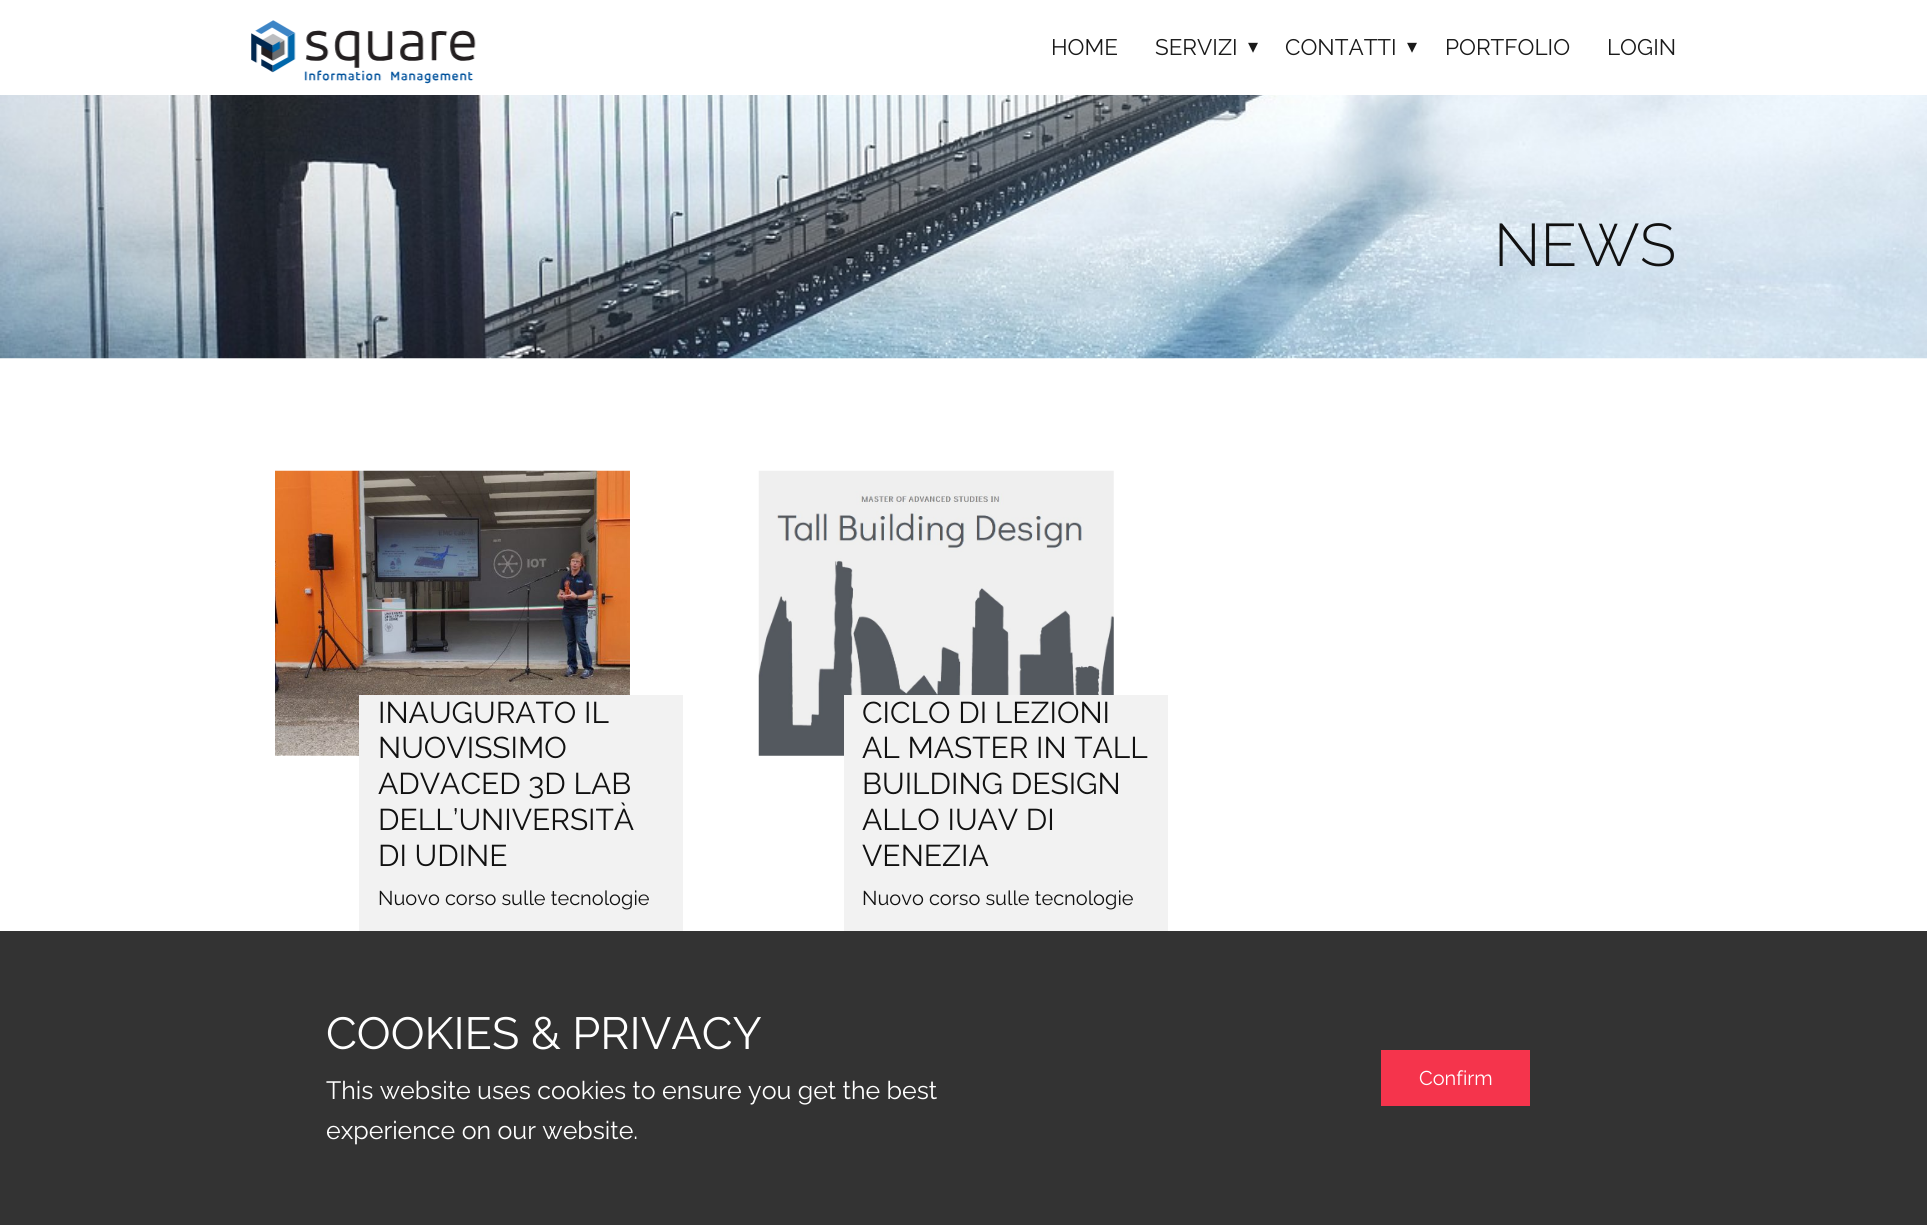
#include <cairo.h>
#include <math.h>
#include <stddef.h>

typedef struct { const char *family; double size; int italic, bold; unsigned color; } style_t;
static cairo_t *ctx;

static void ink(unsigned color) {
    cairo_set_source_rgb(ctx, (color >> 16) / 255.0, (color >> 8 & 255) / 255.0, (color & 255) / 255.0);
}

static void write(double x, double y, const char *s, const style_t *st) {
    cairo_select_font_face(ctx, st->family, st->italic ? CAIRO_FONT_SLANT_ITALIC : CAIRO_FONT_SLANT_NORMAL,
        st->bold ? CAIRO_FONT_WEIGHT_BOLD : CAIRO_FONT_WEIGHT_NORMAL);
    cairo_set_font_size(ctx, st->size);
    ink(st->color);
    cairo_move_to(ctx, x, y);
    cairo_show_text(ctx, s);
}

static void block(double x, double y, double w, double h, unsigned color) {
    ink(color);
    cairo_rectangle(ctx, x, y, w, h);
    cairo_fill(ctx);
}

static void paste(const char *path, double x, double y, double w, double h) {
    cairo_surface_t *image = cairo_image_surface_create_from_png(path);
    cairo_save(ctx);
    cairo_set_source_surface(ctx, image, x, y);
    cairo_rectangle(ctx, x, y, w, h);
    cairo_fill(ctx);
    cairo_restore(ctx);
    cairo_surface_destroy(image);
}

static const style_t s1 = {"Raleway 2 Thin", 22.5, 0, 0, 0x1a1a1a};
static const style_t s2 = {"DejaVu Sans", 20, 0, 0, 0x1a1a1a};
static const style_t s3 = {"Raleway Thin", 60, 0, 0, 0x111111};
static const style_t s4 = {"Raleway 2 Thin", 30, 0, 0, 0x111111};
static const style_t s5 = {"Raleway 2 Thin", 20, 0, 0, 0x111111};
static const style_t s6 = {"Raleway 2 Thin", 45, 0, 0, 0xffffff};
static const style_t s7 = {"Raleway 2 Thin", 25, 0, 0, 0xffffff};
static const style_t s8 = {"Raleway 2 Thin", 20, 0, 0, 0xffffff};

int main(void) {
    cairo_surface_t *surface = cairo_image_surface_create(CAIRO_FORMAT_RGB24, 1927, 1225);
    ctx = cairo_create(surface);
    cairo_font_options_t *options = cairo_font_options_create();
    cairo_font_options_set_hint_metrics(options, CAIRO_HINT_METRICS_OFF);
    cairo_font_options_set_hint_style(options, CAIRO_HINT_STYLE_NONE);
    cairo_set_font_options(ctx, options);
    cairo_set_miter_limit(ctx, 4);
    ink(0xffffff);
    cairo_paint(ctx);
    paste("pic1.png", 251, 20, 225, 64);
    write(1051, 55, "HOME", &s1);
    write(1155, 55, "SERVIZI", &s1);
    write(1248, 53, "▾", &s2);
    write(1285, 55, "CONTATTI", &s1);
    write(1407, 53, "▾", &s2);
    write(1445, 55, "PORTFOLIO", &s1);
    write(1607, 55, "LOGIN", &s1);
    paste("pic2.png", 0, 95, 1927, 264);
    write(1494, 266, "NEWS", &s3);
    paste("pic3.png", 275, 470, 355, 286);
    block(359, 695, 324, 236, 0xf2f2f2);
    write(378, 723, "INAUGURATO IL", &s4);
    write(378, 758, "NUOVISSIMO", &s4);
    write(378, 794, "ADVACED 3D LAB", &s4);
    write(378, 830, "DELL’UNIVERSITÀ", &s4);
    write(378, 866, "DI UDINE", &s4);
    write(378, 905, "Nuovo corso sulle tecnologie", &s5);
    paste("pic4.png", 758, 470, 356, 286);
    block(844, 695, 324, 236, 0xf2f2f2);
    write(862, 723, "CICLO DI LEZIONI", &s4);
    write(862, 758, "AL MASTER IN TALL", &s4);
    write(862, 794, "BUILDING DESIGN", &s4);
    write(862, 830, "ALLO IUAV DI", &s4);
    write(862, 866, "VENEZIA", &s4);
    write(862, 905, "Nuovo corso sulle tecnologie", &s5);
    block(0, 931, 1927, 294, 0x333333);
    write(326, 1049, "COOKIES & PRIVACY", &s6);
    write(326, 1099, "This website uses cookies to ensure you get the best", &s7);
    write(326, 1139, "experience on our website.", &s7);
    block(1381, 1050, 149, 56, 0xf5344c);
    write(1419, 1085, "Confirm", &s8);
    cairo_surface_write_to_png(surface, "screenshot.png");
    cairo_font_options_destroy(options);
    cairo_destroy(ctx);
    cairo_surface_destroy(surface);
    return 0;
}
